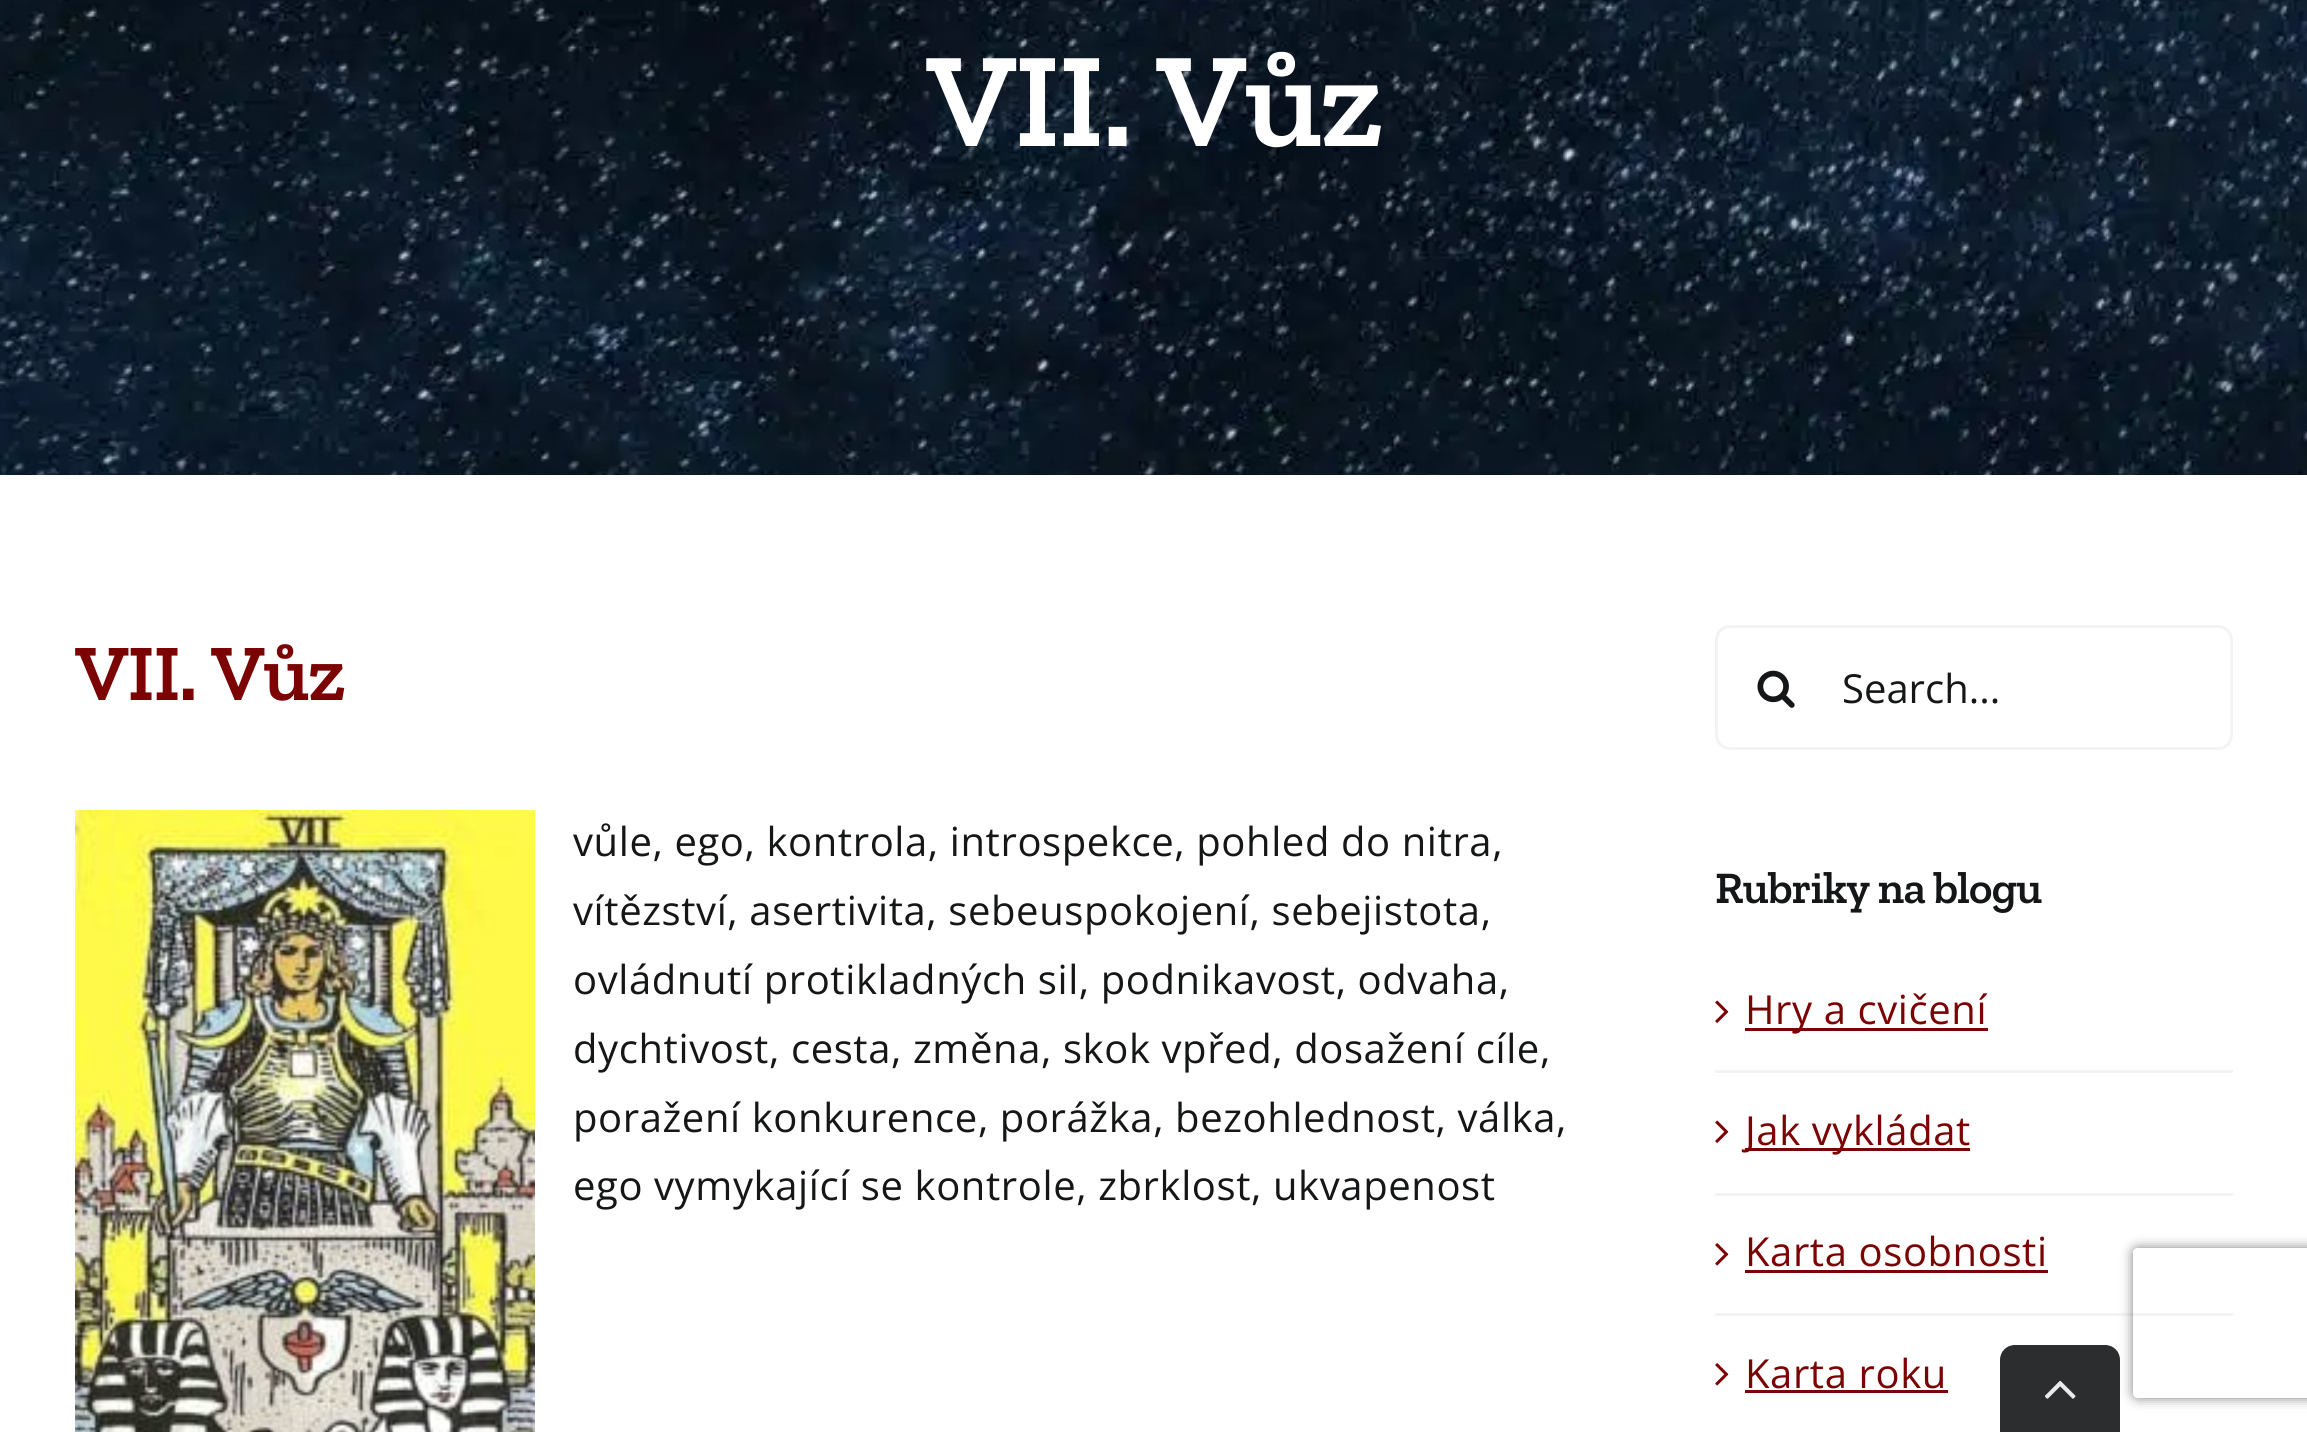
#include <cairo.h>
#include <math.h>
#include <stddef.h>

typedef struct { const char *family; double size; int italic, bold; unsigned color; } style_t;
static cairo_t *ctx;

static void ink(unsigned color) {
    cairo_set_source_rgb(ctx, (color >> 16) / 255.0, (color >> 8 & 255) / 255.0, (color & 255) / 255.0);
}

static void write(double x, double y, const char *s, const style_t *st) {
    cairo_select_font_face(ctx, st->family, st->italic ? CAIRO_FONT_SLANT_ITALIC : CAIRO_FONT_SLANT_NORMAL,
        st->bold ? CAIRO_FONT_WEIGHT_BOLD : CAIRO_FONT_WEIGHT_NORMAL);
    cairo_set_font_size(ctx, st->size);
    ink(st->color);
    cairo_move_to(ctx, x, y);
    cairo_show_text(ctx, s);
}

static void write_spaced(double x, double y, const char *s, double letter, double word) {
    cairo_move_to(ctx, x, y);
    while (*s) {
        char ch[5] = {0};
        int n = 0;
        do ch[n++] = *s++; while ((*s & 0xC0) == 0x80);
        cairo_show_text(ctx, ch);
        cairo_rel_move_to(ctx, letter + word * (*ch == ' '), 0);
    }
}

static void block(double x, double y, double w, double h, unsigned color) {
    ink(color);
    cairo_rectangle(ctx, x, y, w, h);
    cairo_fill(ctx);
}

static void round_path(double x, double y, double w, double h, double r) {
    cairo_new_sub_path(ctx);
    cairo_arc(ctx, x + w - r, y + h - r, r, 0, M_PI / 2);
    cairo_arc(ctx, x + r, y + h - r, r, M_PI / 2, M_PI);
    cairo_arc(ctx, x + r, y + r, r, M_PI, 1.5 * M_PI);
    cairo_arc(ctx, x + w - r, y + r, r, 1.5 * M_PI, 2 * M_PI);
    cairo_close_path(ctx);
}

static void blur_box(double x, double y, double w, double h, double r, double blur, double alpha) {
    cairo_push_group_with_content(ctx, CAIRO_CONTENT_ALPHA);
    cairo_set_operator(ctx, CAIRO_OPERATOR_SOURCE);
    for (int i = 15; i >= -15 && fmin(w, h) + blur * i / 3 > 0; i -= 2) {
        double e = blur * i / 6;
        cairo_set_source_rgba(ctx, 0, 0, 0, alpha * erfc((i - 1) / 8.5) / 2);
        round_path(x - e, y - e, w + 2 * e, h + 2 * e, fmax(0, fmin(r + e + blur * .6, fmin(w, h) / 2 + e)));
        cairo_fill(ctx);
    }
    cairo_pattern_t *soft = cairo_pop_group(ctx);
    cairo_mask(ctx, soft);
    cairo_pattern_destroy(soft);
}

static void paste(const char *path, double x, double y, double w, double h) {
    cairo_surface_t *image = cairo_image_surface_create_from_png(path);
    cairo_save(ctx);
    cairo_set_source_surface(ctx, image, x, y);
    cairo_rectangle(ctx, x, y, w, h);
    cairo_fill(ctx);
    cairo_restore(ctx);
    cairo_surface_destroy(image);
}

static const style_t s1 = {"Open Sans", 40, 0, 0, 0x141617};

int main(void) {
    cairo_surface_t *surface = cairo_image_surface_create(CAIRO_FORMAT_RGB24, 2307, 1432);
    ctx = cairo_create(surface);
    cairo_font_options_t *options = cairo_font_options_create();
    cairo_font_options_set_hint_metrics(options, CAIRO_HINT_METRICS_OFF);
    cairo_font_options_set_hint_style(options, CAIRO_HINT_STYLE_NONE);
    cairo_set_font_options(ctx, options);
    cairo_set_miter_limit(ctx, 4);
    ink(0xffffff);
    cairo_paint(ctx);
    paste("pic1.png", 0, 0, 2307, 475);
    cairo_select_font_face(ctx, "Zilla Slab SemiBold", CAIRO_FONT_SLANT_NORMAL, CAIRO_FONT_WEIGHT_NORMAL);
    cairo_set_font_size(ctx, 135);
    ink(0xffffff);
    write_spaced(926, 146, "VII. Vůz", -2, 0);
    cairo_set_font_size(ctx, 80);
    ink(0x7c0303);
    write_spaced(75, 700, "VII. Vůz", -1.25, 0);
    paste("pic2.png", 75, 810, 460, 622);
    cairo_select_font_face(ctx, "Open Sans", CAIRO_FONT_SLANT_NORMAL, CAIRO_FONT_WEIGHT_NORMAL);
    cairo_set_font_size(ctx, 40);
    ink(0x141617);
    write_spaced(573, 856, "vůle, ego, kontrola, introspekce, pohled do nitra,", 0.6, 0);
    write_spaced(573, 925, "vítězství, asertivita, sebeuspokojení, sebejistota,", 0.6, 0);
    write_spaced(573, 994, "ovládnutí protikladných sil, podnikavost, odvaha,", 0.6, 0);
    write_spaced(573, 1063, "dychtivost, cesta, změna, skok vpřed, dosažení cíle,", 0.6, 0);
    write_spaced(573, 1132, "poražení konkurence, porážka, bezohlednost, válka,", 0.6, 0);
    write_spaced(573, 1200, "ego vymykající se kontrole, zbrklost, ukvapenost", 0.6, 0);
    round_path(1716.5, 626.5, 515, 122, 13.5);
    ink(0xf2f3f5);
    cairo_set_line_width(ctx, 3);
    cairo_stroke(ctx);
    paste("pic3.png", 1757, 670, 38, 38);
    write(1842, 703, "Search...", &s1);
    cairo_select_font_face(ctx, "Zilla Slab SemiBold", CAIRO_FONT_SLANT_NORMAL, CAIRO_FONT_WEIGHT_NORMAL);
    cairo_set_font_size(ctx, 45);
    write_spaced(1715, 903, "Rubriky na blogu", -0.7, 0);
    block(1715, 1070, 518, 3, 0xf2f3f5);
    paste("pic4.png", 1715, 1000, 14, 23);
    block(1745, 1028, 243, 3, 0x7c0303);
    cairo_select_font_face(ctx, "Open Sans", CAIRO_FONT_SLANT_NORMAL, CAIRO_FONT_WEIGHT_NORMAL);
    cairo_set_font_size(ctx, 40);
    write_spaced(1745, 1024, "Hry a cvičení", 0.6, 0);
    block(1715, 1193, 518, 3, 0xf2f3f5);
    paste("pic4.png", 1715, 1120, 14, 23);
    block(1745, 1148, 225, 3, 0x7c0303);
    write_spaced(1745, 1145, "Jak vykládat", 0.6, 0);
    block(1715, 1313, 518, 3, 0xf2f3f5);
    paste("pic5.png", 1715, 1243, 14, 23);
    ink(0x7c0303);
    write_spaced(1745, 1266, "Karta osobnosti", 0.6, 0);
    block(1745, 1270, 303, 3, 0x7c0303);
    paste("pic5.png", 1715, 1363, 14, 23);
    write_spaced(1745, 1388, "Karta roku", 0.6, 0);
    block(1745, 1390, 203, 3, 0x7c0303);
    cairo_save(ctx);
    cairo_set_fill_rule(ctx, CAIRO_FILL_RULE_EVEN_ODD);
    cairo_new_path(ctx);
    cairo_move_to(ctx, 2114, 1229);
    cairo_line_to(ctx, 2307, 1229);
    cairo_line_to(ctx, 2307, 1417);
    cairo_line_to(ctx, 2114, 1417);
    cairo_close_path(ctx);
    cairo_move_to(ctx, 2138, 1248);
    cairo_line_to(ctx, 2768, 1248);
    cairo_curve_to(ctx, 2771, 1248, 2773, 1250, 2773, 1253);
    cairo_line_to(ctx, 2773, 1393);
    cairo_curve_to(ctx, 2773, 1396, 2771, 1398, 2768, 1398);
    cairo_line_to(ctx, 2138, 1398);
    cairo_curve_to(ctx, 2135, 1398, 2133, 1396, 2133, 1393);
    cairo_line_to(ctx, 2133, 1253);
    cairo_curve_to(ctx, 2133, 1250, 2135, 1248, 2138, 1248);
    cairo_close_path(ctx);
    cairo_clip(ctx);
    ink(0x808080);
    blur_box(2133, 1248, 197, 150, 5, 6, 1);
    cairo_restore(ctx);
    ink(0x2b2d2e);
    cairo_new_path(ctx);
    cairo_move_to(ctx, 2015, 1345);
    cairo_line_to(ctx, 2105, 1345);
    cairo_curve_to(ctx, 2113.5, 1345, 2120, 1351.5, 2120, 1360);
    cairo_line_to(ctx, 2120, 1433);
    cairo_line_to(ctx, 2000, 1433);
    cairo_line_to(ctx, 2000, 1360);
    cairo_curve_to(ctx, 2000, 1351.5, 2006.5, 1345, 2015, 1345);
    cairo_close_path(ctx);
    cairo_fill(ctx);
    paste("pic6.png", 2044, 1380, 32, 19);
    cairo_surface_write_to_png(surface, "screenshot.png");
    cairo_font_options_destroy(options);
    cairo_destroy(ctx);
    cairo_surface_destroy(surface);
    return 0;
}
